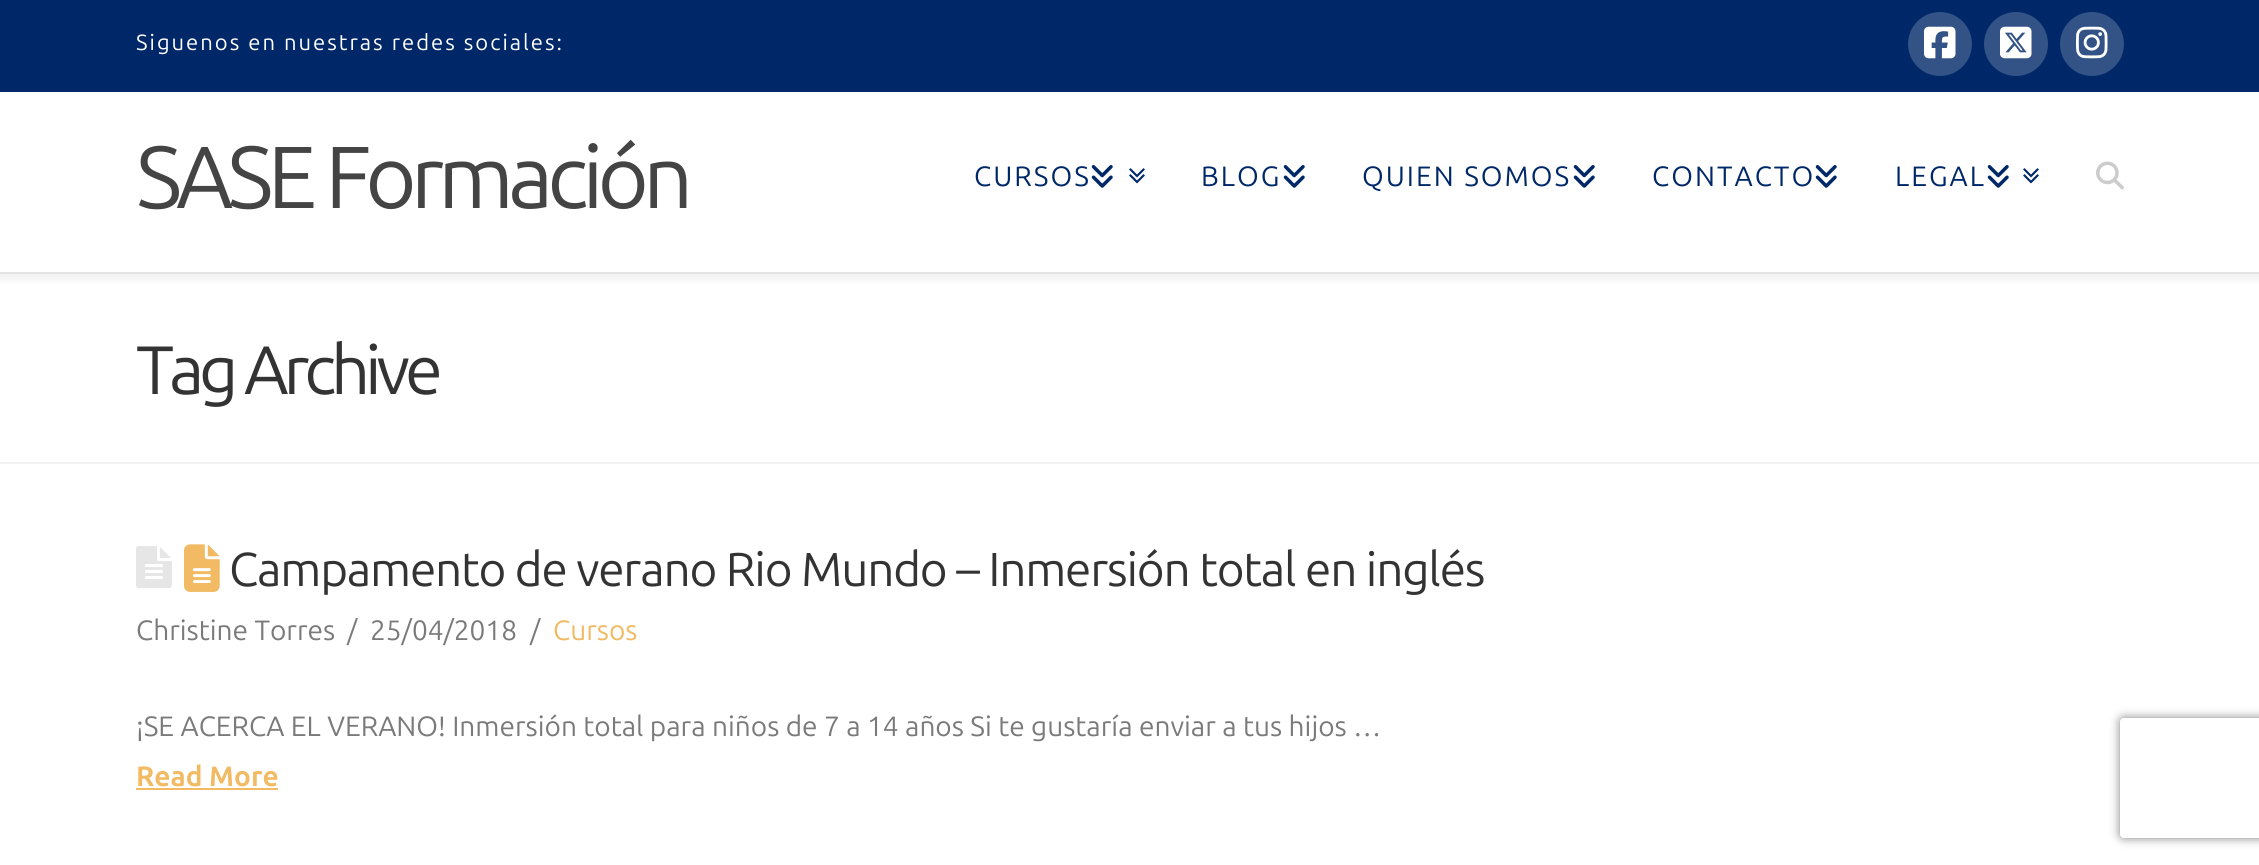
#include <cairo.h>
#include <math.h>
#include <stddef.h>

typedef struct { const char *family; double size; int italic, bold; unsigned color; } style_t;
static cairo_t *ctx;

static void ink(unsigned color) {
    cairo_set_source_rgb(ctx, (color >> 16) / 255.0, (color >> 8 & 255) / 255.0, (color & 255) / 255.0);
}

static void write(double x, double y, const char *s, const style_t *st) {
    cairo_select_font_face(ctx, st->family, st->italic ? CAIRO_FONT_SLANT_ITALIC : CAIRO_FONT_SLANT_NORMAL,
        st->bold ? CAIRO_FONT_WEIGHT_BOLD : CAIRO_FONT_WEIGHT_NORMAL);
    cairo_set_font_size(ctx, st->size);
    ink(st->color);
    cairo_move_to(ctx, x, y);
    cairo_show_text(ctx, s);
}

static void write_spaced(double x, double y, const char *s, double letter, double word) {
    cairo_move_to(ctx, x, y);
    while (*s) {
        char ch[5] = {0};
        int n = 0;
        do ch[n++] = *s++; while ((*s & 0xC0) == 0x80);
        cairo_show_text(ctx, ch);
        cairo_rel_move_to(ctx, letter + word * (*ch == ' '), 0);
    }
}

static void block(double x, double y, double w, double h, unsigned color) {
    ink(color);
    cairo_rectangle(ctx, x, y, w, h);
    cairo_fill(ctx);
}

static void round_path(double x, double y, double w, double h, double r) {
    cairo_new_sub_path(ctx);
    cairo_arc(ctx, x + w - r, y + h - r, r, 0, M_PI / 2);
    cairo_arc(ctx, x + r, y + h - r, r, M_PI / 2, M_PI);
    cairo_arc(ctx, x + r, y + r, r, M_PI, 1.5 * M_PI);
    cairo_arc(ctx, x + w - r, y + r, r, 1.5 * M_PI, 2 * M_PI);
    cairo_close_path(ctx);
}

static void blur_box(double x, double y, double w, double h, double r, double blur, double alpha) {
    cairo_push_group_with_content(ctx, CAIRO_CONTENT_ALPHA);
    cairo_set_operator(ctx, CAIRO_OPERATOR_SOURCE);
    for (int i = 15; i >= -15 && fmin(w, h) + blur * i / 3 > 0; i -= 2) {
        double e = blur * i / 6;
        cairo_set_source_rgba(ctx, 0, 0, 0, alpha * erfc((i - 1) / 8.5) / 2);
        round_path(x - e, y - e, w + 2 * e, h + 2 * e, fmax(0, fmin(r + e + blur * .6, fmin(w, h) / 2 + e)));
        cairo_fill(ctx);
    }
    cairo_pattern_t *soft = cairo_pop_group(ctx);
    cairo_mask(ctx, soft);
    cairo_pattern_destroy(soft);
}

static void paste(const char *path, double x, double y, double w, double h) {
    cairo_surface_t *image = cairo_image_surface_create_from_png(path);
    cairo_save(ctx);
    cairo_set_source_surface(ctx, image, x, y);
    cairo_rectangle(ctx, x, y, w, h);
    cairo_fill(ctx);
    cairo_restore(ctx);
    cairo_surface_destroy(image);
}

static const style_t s1 = {"Ubuntu", 28, 0, 0, 0x7a7a7a};
static const style_t s2 = {"Ubuntu", 28, 0, 0, 0xf1ba63};
static const style_t s3 = {"Ubuntu", 28, 0, 1, 0xf1ba63};

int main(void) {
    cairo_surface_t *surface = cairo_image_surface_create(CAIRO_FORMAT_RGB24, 2259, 865);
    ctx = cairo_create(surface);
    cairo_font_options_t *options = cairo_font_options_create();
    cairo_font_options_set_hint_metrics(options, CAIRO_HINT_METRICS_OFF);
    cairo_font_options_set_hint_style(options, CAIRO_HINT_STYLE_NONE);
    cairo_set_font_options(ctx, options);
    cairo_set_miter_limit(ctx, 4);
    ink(0xffffff);
    cairo_paint(ctx);
    block(0, 272, 2259, 2, 0xf2f2f2);
    cairo_save(ctx);
    cairo_rectangle(ctx, 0, 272, 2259, 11);
    cairo_clip(ctx);
    ink(0x000000);
    blur_box(-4, 88, 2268, 188, 0, 8, 0.1);
    cairo_restore(ctx);
    block(0, 0, 2259, 92, 0x002868);
    cairo_select_font_face(ctx, "Ubuntu", CAIRO_FONT_SLANT_NORMAL, CAIRO_FONT_WEIGHT_NORMAL);
    cairo_set_font_size(ctx, 22);
    ink(0xffffff);
    write_spaced(136, 50, "Siguenos en nuestras redes sociales:", 2, 0);
    ink(0x335386);
    cairo_new_path(ctx);
    cairo_arc(ctx, 1940, 44, 32, 0, 2 * M_PI);
    cairo_fill(ctx);
    paste("pic1.png", 1924, 26, 32, 33);
    cairo_arc(ctx, 2016, 44, 32, 0, 2 * M_PI);
    cairo_fill(ctx);
    paste("pic2.png", 2000, 26, 32, 33);
    cairo_arc(ctx, 2092, 44, 32, 0, 2 * M_PI);
    cairo_fill(ctx);
    paste("pic3.png", 2076, 26, 32, 33);
    cairo_set_font_size(ctx, 88);
    ink(0x444444);
    write_spaced(136, 208, "SASE Formación", -6, 0);
    cairo_set_font_size(ctx, 28);
    ink(0x002868);
    write_spaced(974, 186, "CURSOS", 2, 0);
    paste("pic4.png", 1091, 165, 22, 23);
    paste("pic5.png", 1129, 168, 16, 16);
    write_spaced(1201, 186, "BLOG", 2, 0);
    paste("pic4.png", 1283, 165, 22, 23);
    write_spaced(1362, 186, "QUIEN SOMOS", 2, 0);
    paste("pic4.png", 1573, 165, 22, 23);
    write_spaced(1652, 186, "CONTACTO", 2, 0);
    paste("pic4.png", 1815, 165, 22, 23);
    write_spaced(1895, 186, "LEGAL", 2, 0);
    paste("pic4.png", 1987, 165, 22, 23);
    paste("pic5.png", 2023, 168, 16, 16);
    paste("pic6.png", 2096, 161, 28, 29);
    block(0, 462, 2259, 2, 0xf2f2f2);
    cairo_set_font_size(ctx, 68.5);
    ink(0x333333);
    write_spaced(136, 394, "Tag Archive", -5.1, 0);
    paste("pic7.png", 136, 546, 36, 42);
    paste("pic8.png", 184, 544, 36, 48);
    cairo_set_font_size(ctx, 47.6);
    write_spaced(229, 586, "Campamento de verano Rio Mundo – Inmersión total en inglés", -1.2, 0);
    write(136, 640, "Christine Torres", &s1);
    write(347, 640, "/", &s1);
    write(370, 640, "25/04/2018", &s1);
    write(530, 640, "/", &s1);
    write(553, 640, "Cursos", &s2);
    write(136, 736, "¡SE ACERCA EL VERANO! Inmersión total para niños de 7 a 14 años Si te gustaría enviar a tus hijos …", &s1);
    write(136, 786, "Read More", &s3);
    block(136, 788, 142, 2, 0xf1ba63);
    cairo_save(ctx);
    cairo_set_fill_rule(ctx, CAIRO_FILL_RULE_EVEN_ODD);
    cairo_new_path(ctx);
    cairo_move_to(ctx, 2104, 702);
    cairo_line_to(ctx, 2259, 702);
    cairo_line_to(ctx, 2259, 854);
    cairo_line_to(ctx, 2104, 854);
    cairo_close_path(ctx);
    cairo_move_to(ctx, 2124, 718);
    cairo_line_to(ctx, 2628, 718);
    cairo_curve_to(ctx, 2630, 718, 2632, 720, 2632, 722);
    cairo_line_to(ctx, 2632, 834);
    cairo_curve_to(ctx, 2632, 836, 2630, 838, 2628, 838);
    cairo_line_to(ctx, 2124, 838);
    cairo_curve_to(ctx, 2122, 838, 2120, 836, 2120, 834);
    cairo_line_to(ctx, 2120, 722);
    cairo_curve_to(ctx, 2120, 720, 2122, 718, 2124, 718);
    cairo_close_path(ctx);
    cairo_clip(ctx);
    ink(0x808080);
    blur_box(2120, 718, 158, 120, 4, 5, 1);
    cairo_restore(ctx);
    cairo_surface_write_to_png(surface, "screenshot.png");
    cairo_font_options_destroy(options);
    cairo_destroy(ctx);
    cairo_surface_destroy(surface);
    return 0;
}
